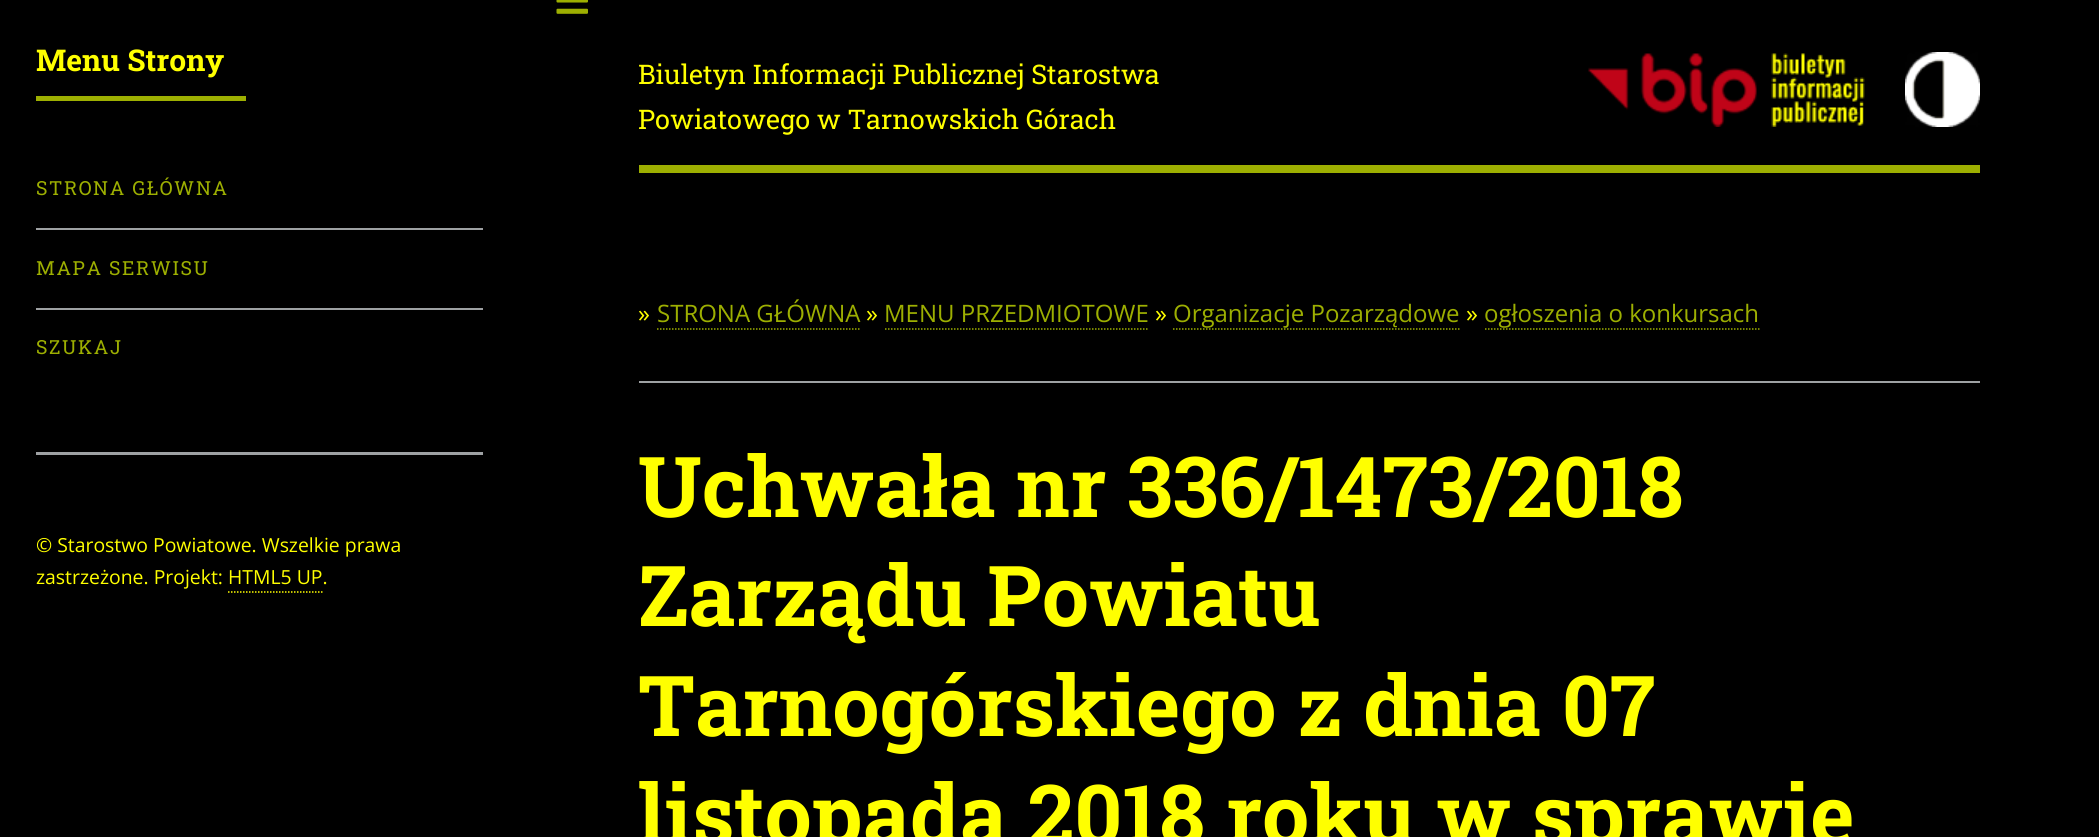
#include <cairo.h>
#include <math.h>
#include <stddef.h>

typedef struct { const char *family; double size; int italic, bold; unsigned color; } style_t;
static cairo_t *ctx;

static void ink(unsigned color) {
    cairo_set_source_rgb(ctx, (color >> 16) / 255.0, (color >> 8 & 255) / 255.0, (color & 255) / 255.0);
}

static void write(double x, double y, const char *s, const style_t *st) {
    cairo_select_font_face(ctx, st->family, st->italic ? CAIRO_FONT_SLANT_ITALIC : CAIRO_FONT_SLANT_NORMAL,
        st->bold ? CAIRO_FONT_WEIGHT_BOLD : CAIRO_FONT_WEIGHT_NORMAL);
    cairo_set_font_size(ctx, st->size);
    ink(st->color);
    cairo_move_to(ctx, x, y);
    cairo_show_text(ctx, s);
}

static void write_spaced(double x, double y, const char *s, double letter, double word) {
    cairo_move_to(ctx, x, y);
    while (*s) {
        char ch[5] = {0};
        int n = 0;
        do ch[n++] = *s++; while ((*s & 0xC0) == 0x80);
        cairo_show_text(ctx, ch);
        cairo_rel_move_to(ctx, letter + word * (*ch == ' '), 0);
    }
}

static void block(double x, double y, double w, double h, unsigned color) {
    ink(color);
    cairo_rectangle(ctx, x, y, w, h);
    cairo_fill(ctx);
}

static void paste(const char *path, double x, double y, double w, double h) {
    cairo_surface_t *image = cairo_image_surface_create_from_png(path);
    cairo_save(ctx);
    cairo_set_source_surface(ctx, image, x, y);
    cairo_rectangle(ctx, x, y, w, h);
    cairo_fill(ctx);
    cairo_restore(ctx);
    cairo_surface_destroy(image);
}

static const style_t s1 = {"Roboto Slab", 30, 0, 1, 0xffff00};
static const style_t s2 = {"Open Sans", 19.4, 0, 0, 0xffff00};
static const style_t s3 = {"Roboto Slab", 27, 0, 0, 0xffff00};
static const style_t s4 = {"Open Sans", 24, 0, 0, 0xffff00};
static const style_t s5 = {"Open Sans", 24, 0, 0, 0x9daf01};
static const style_t s6 = {"Roboto Slab", 84, 0, 1, 0xffff00};

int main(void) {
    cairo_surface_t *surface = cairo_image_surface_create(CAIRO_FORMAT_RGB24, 2099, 837);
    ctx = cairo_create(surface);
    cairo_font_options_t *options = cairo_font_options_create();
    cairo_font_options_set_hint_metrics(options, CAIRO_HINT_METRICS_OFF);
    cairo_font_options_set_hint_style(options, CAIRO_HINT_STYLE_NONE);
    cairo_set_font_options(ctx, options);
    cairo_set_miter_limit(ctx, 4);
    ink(0x000000);
    cairo_paint(ctx);
    paste("pic1.png", 556, 0, 32, 14);
    block(36, 452, 447, 3, 0x9ea1a3);
    block(36, 96, 210, 5, 0x9daf01);
    write(36, 71, "Menu Strony", &s1);
    cairo_select_font_face(ctx, "Roboto Slab", CAIRO_FONT_SLANT_NORMAL, CAIRO_FONT_WEIGHT_NORMAL);
    cairo_set_font_size(ctx, 19.4);
    ink(0x9daf01);
    write_spaced(36, 195, "STRONA GŁÓWNA", 1.6, 0);
    block(36, 228, 447, 2, 0x9ea1a3);
    ink(0x9daf01);
    write_spaced(36, 275, "MAPA SERWISU", 1.6, 0);
    block(36, 308, 447, 2, 0x9ea1a3);
    ink(0x9daf01);
    write_spaced(36, 354, "SZUKAJ", 1.6, 0);
    write(36, 552, "© Starostwo Powiatowe. Wszelkie prawa", &s2);
    write(36, 584, "zastrzeżone. Projekt: HTML5 UP.", &s2);
    cairo_new_path(ctx);
    cairo_move_to(ctx, 228, 592);
    cairo_line_to(ctx, 322.5, 592);
    cairo_set_line_width(ctx, 1.5);
    cairo_set_dash(ctx, (double[]){1.5, 1.5}, 2, 0);
    cairo_stroke(ctx);
    block(639, 165, 1341, 8, 0x9daf01);
    write(638, 84, "Biuletyn Informacji Publicznej Starostwa", &s3);
    write(638, 129, "Powiatowego w Tarnowskich Górach", &s3);
    paste("pic2.png", 1588, 53, 277, 74);
    paste("pic3.png", 1905, 52, 75, 75);
    write(638, 322, "»", &s4);
    write(657, 322, "STRONA GŁÓWNA", &s5);
    cairo_new_path(ctx);
    cairo_move_to(ctx, 657, 329);
    cairo_line_to(ctx, 859.5, 329);
    cairo_stroke(ctx);
    write(866, 322, "»", &s4);
    write(884, 322, "MENU PRZEDMIOTOWE", &s5);
    cairo_new_path(ctx);
    cairo_move_to(ctx, 885, 329);
    cairo_line_to(ctx, 1149, 329);
    cairo_stroke(ctx);
    write(1155, 322, "»", &s4);
    write(1173, 322, "Organizacje Pozarządowe", &s5);
    cairo_new_path(ctx);
    cairo_move_to(ctx, 1173, 329);
    cairo_line_to(ctx, 1459.5, 329);
    cairo_stroke(ctx);
    write(1466, 322, "»", &s4);
    write(1484, 322, "ogłoszenia o konkursach", &s5);
    cairo_new_path(ctx);
    cairo_move_to(ctx, 1485, 329);
    cairo_line_to(ctx, 1759.5, 329);
    cairo_stroke(ctx);
    block(639, 381, 1341, 2, 0x9ea1a3);
    write(638, 517, "Uchwała nr 336/1473/2018", &s6);
    write(638, 626, "Zarządu Powiatu", &s6);
    write(638, 736, "Tarnogórskiego z dnia 07", &s6);
    write(638, 845, "listopada 2018 roku w sprawie", &s6);
    cairo_surface_write_to_png(surface, "screenshot.png");
    cairo_font_options_destroy(options);
    cairo_destroy(ctx);
    cairo_surface_destroy(surface);
    return 0;
}
